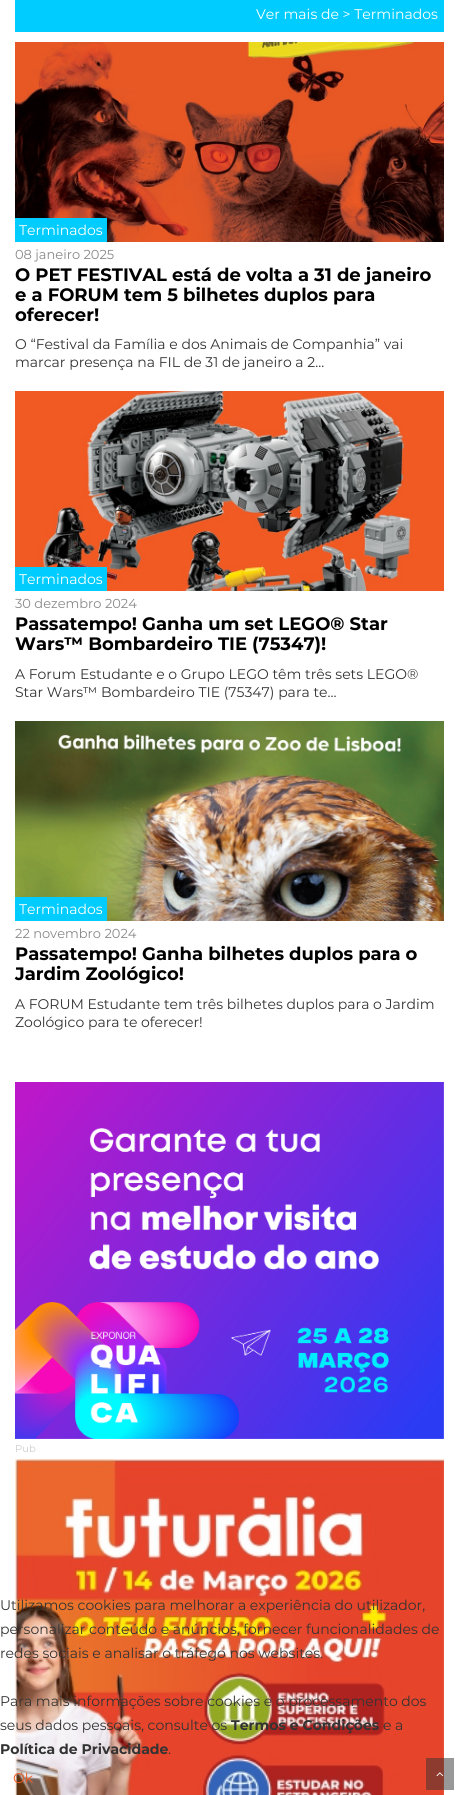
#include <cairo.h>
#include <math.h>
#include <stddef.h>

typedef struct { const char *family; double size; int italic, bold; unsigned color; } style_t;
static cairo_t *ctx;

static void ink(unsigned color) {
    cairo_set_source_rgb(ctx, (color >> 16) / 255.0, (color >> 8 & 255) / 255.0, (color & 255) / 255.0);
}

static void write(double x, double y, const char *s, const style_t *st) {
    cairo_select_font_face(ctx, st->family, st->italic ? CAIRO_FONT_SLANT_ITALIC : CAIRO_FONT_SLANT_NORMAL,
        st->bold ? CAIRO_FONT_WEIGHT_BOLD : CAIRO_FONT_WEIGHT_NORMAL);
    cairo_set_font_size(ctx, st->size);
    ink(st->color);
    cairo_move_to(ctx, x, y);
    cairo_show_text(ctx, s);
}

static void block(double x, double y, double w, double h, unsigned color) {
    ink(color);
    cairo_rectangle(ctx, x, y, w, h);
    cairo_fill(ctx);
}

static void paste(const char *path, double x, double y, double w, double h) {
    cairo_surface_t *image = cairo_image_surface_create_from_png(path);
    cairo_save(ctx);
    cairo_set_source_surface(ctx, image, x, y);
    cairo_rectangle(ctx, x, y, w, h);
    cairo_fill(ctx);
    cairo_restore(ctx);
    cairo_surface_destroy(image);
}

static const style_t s1 = {"Montserrat", 14, 0, 0, 0xffffff};
static const style_t s2 = {"Montserrat", 13, 0, 0, 0x888888};
static const style_t s3 = {"Montserrat", 18, 0, 1, 0x000000};
static const style_t s4 = {"Montserrat", 14, 0, 0, 0x333333};
static const style_t s5 = {"Montserrat", 10, 0, 0, 0xcccccc};
static const style_t s6 = {"Montserrat", 14, 0, 1, 0x333333};
static const style_t s7 = {"Montserrat", 14, 0, 0, 0xef5c23};

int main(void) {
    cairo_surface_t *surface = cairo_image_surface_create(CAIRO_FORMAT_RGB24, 459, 1795);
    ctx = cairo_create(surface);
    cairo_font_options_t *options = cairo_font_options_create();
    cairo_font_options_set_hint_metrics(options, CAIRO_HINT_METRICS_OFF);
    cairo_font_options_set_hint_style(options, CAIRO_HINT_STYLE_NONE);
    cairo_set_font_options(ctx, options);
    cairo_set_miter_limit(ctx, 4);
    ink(0xffffff);
    cairo_paint(ctx);
    block(15, 0, 429, 32, 0x00ccff);
    write(256, 19, "Ver mais de > Terminados", &s1);
    paste("pic1.png", 15, 42, 429, 200);
    block(15, 218, 92, 24, 0x00ccff);
    write(19, 235, "Terminados", &s1);
    write(15, 259, "08 janeiro 2025", &s2);
    write(15, 281, "O PET FESTIVAL está de volta a 31 de janeiro", &s3);
    write(15, 301, "e a FORUM tem 5 bilhetes duplos para", &s3);
    write(15, 321, "oferecer!", &s3);
    write(15, 349, "O “Festival da Família e dos Animais de Companhia” vai", &s4);
    write(15, 367, "marcar presença na FIL de 31 de janeiro a 2...", &s4);
    paste("pic2.png", 15, 391, 429, 200);
    block(15, 567, 92, 24, 0x00ccff);
    write(19, 584, "Terminados", &s1);
    write(15, 608, "30 dezembro 2024", &s2);
    write(15, 630, "Passatempo! Ganha um set LEGO® Star", &s3);
    write(15, 650, "Wars™ Bombardeiro TIE (75347)!", &s3);
    write(15, 679, "A Forum Estudante e o Grupo LEGO têm três sets LEGO®", &s4);
    write(15, 697, "Star Wars™ Bombardeiro TIE (75347) para te...", &s4);
    paste("pic3.png", 15, 721, 429, 200);
    block(15, 897, 92, 24, 0x00ccff);
    write(19, 914, "Terminados", &s1);
    write(15, 938, "22 novembro 2024", &s2);
    write(15, 960, "Passatempo! Ganha bilhetes duplos para o", &s3);
    write(15, 980, "Jardim Zoológico!", &s3);
    write(15, 1009, "A FORUM Estudante tem três bilhetes duplos para o Jardim", &s4);
    write(15, 1027, "Zoológico para te oferecer!", &s4);
    paste("pic4.png", 15, 1082, 429, 357);
    write(15, 1452, "Pub", &s5);
    paste("pic5.png", 15, 1459, 429, 336);
    cairo_set_source_rgba(ctx, 0.2, 0.2, 0.2, 0.5);
    cairo_rectangle(ctx, 426, 1758, 28, 32);
    cairo_fill(ctx);
    paste("pic6.png", 436, 1772, 8, 5);
    write(0, 1610, "Utilizamos cookies para melhorar a experiência do utilizador,", &s4);
    write(0, 1634, "personalizar conteúdo e anúncios, fornecer funcionalidades de", &s4);
    write(0, 1658, "redes sociais e analisar o tráfego nos websites.", &s4);
    write(0, 1706, "Para mais informações sobre cookies e o processamento dos", &s4);
    write(0, 1730, "seus dados pessoais, consulte os", &s4);
    write(231, 1730, "Termos e Condições", &s6);
    write(383, 1730, "e a", &s4);
    write(0, 1754, "Política de Privacidade", &s6);
    write(168, 1754, ".", &s4);
    write(13, 1783, "Ok", &s7);
    cairo_surface_write_to_png(surface, "screenshot.png");
    cairo_font_options_destroy(options);
    cairo_destroy(ctx);
    cairo_surface_destroy(surface);
    return 0;
}
